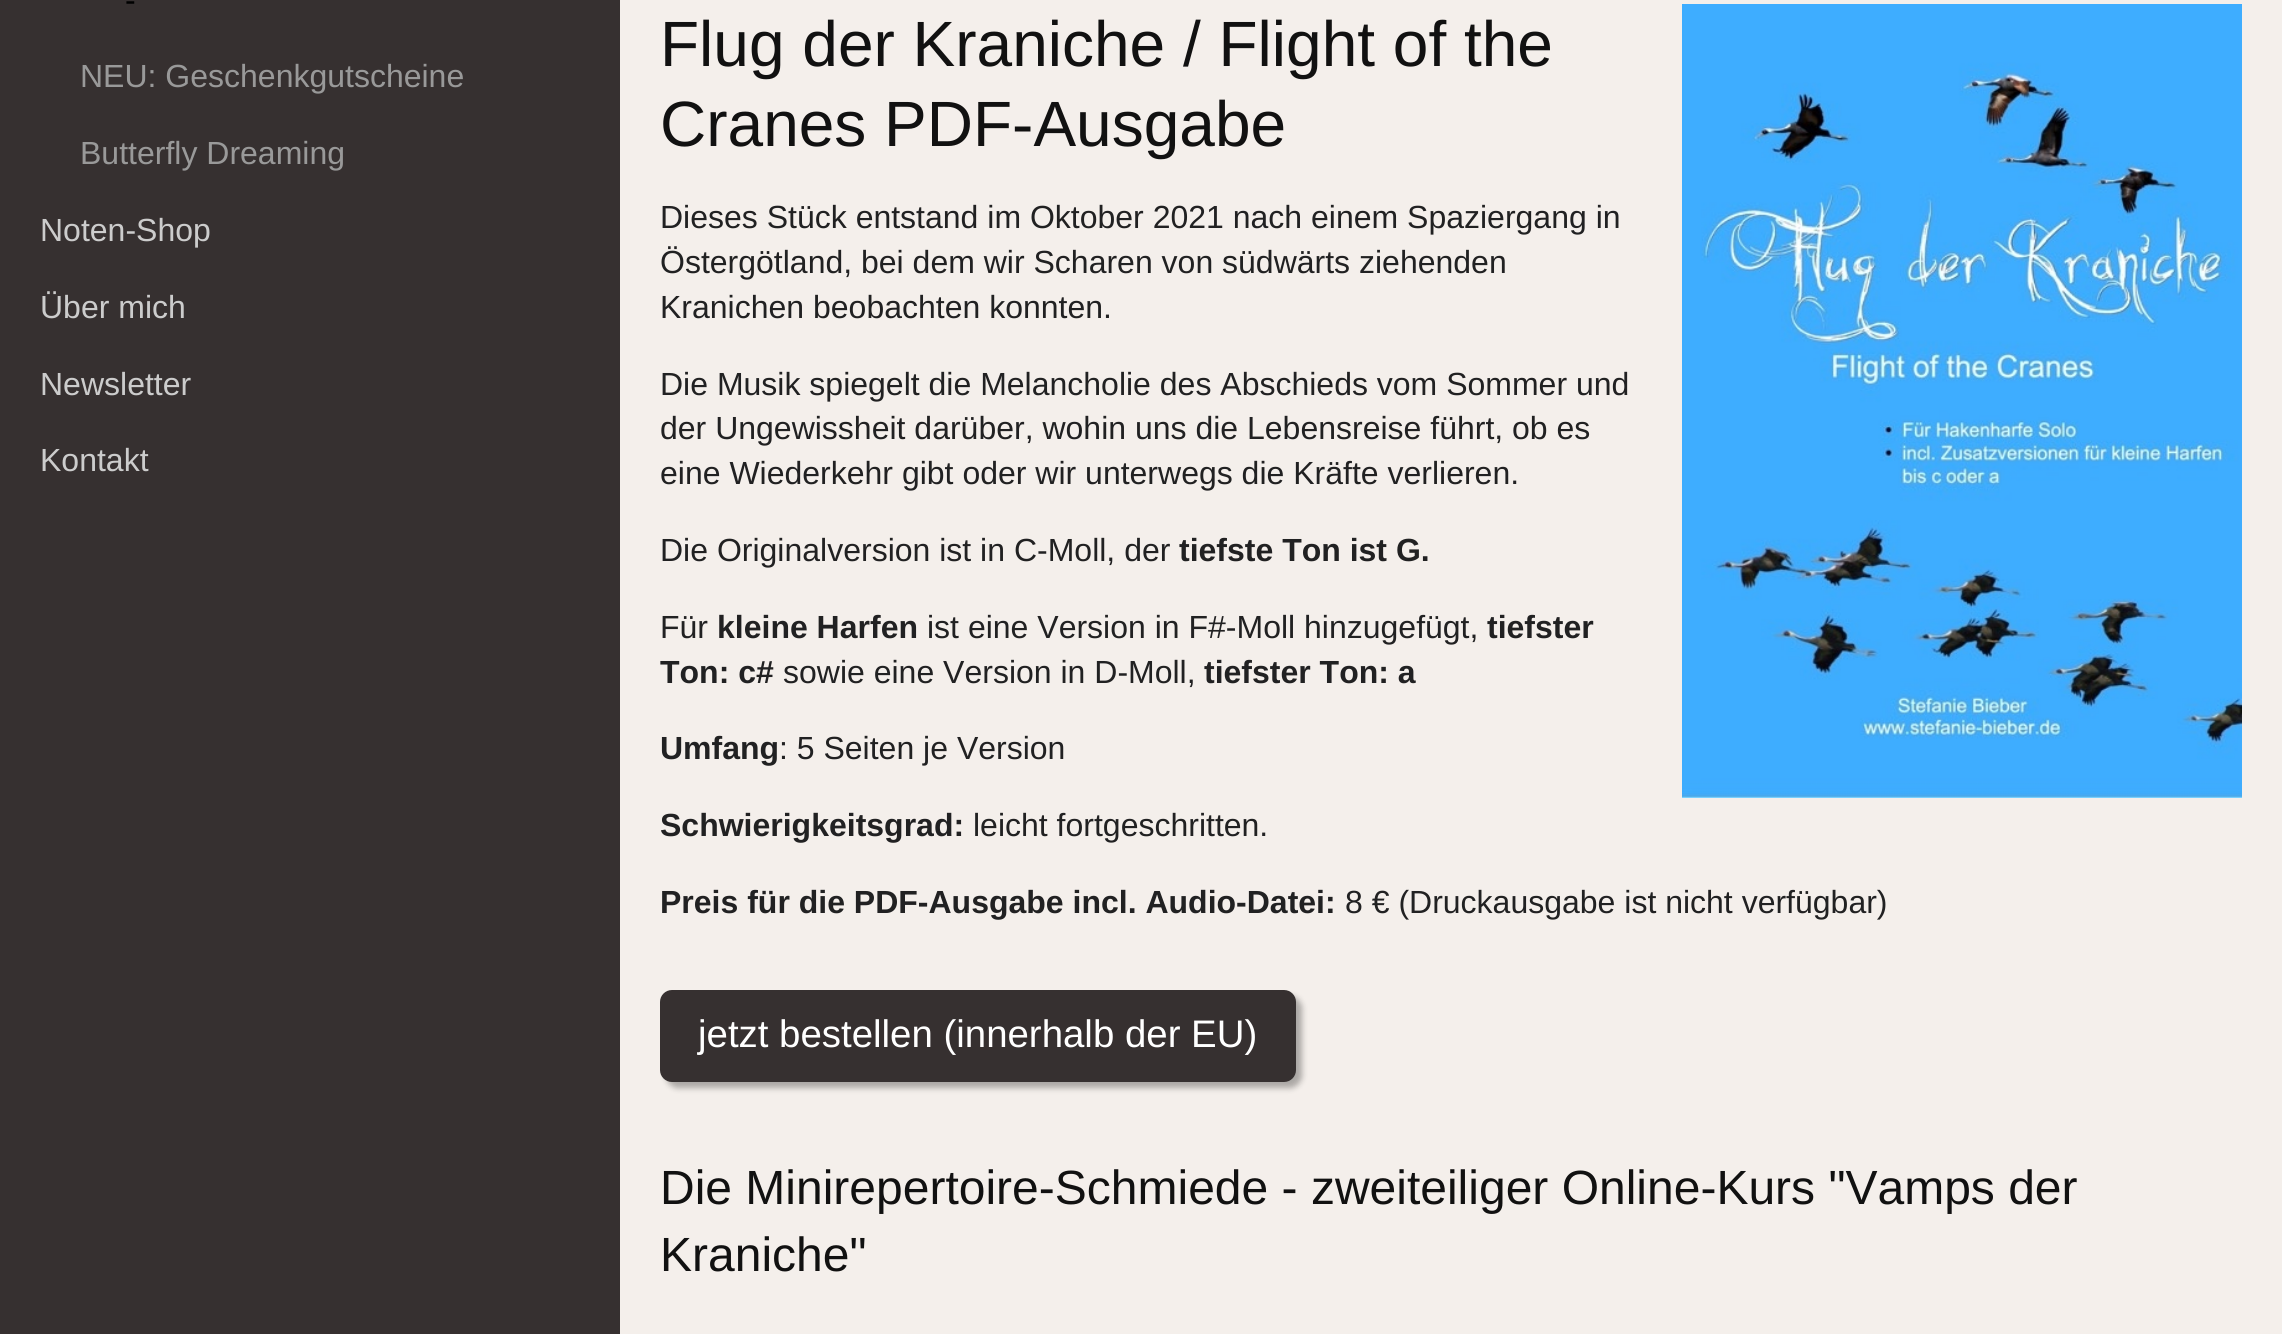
#include <cairo.h>
#include <math.h>
#include <stddef.h>

typedef struct { const char *family; double size; int italic, bold; unsigned color; } style_t;
static cairo_t *ctx;

static void ink(unsigned color) {
    cairo_set_source_rgb(ctx, (color >> 16) / 255.0, (color >> 8 & 255) / 255.0, (color & 255) / 255.0);
}

static void write(double x, double y, const char *s, const style_t *st) {
    cairo_select_font_face(ctx, st->family, st->italic ? CAIRO_FONT_SLANT_ITALIC : CAIRO_FONT_SLANT_NORMAL,
        st->bold ? CAIRO_FONT_WEIGHT_BOLD : CAIRO_FONT_WEIGHT_NORMAL);
    cairo_set_font_size(ctx, st->size);
    ink(st->color);
    cairo_move_to(ctx, x, y);
    cairo_show_text(ctx, s);
}

static void block(double x, double y, double w, double h, unsigned color) {
    ink(color);
    cairo_rectangle(ctx, x, y, w, h);
    cairo_fill(ctx);
}

static void round_path(double x, double y, double w, double h, double r) {
    cairo_new_sub_path(ctx);
    cairo_arc(ctx, x + w - r, y + h - r, r, 0, M_PI / 2);
    cairo_arc(ctx, x + r, y + h - r, r, M_PI / 2, M_PI);
    cairo_arc(ctx, x + r, y + r, r, M_PI, 1.5 * M_PI);
    cairo_arc(ctx, x + w - r, y + r, r, 1.5 * M_PI, 2 * M_PI);
    cairo_close_path(ctx);
}

static void blur_box(double x, double y, double w, double h, double r, double blur, double alpha) {
    cairo_push_group_with_content(ctx, CAIRO_CONTENT_ALPHA);
    cairo_set_operator(ctx, CAIRO_OPERATOR_SOURCE);
    for (int i = 15; i >= -15 && fmin(w, h) + blur * i / 3 > 0; i -= 2) {
        double e = blur * i / 6;
        cairo_set_source_rgba(ctx, 0, 0, 0, alpha * erfc((i - 1) / 8.5) / 2);
        round_path(x - e, y - e, w + 2 * e, h + 2 * e, fmax(0, fmin(r + e + blur * .6, fmin(w, h) / 2 + e)));
        cairo_fill(ctx);
    }
    cairo_pattern_t *soft = cairo_pop_group(ctx);
    cairo_mask(ctx, soft);
    cairo_pattern_destroy(soft);
}

static void paste(const char *path, double x, double y, double w, double h) {
    cairo_surface_t *image = cairo_image_surface_create_from_png(path);
    cairo_save(ctx);
    cairo_set_source_surface(ctx, image, x, y);
    cairo_rectangle(ctx, x, y, w, h);
    cairo_fill(ctx);
    cairo_restore(ctx);
    cairo_surface_destroy(image);
}

static const style_t s1 = {"Liberation Sans", 32, 0, 0, 0x000000};
static const style_t s2 = {"Liberation Sans", 32, 0, 0, 0x999999};
static const style_t s3 = {"Liberation Sans", 32, 0, 0, 0xcccccc};
static const style_t s4 = {"Liberation Sans", 64, 0, 0, 0x111111};
static const style_t s5 = {"Liberation Sans", 32, 0, 0, 0x212122};
static const style_t s6 = {"Liberation Sans", 32, 0, 1, 0x212122};
static const style_t s7 = {"Liberation Sans", 38.4, 0, 0, 0xffffff};
static const style_t s8 = {"Liberation Sans", 48, 0, 0, 0x111111};

int main(void) {
    cairo_surface_t *surface = cairo_image_surface_create(CAIRO_FORMAT_RGB24, 2282, 1334);
    ctx = cairo_create(surface);
    cairo_font_options_t *options = cairo_font_options_create();
    cairo_font_options_set_hint_metrics(options, CAIRO_HINT_METRICS_OFF);
    cairo_font_options_set_hint_style(options, CAIRO_HINT_STYLE_NONE);
    cairo_set_font_options(ctx, options);
    cairo_set_miter_limit(ctx, 4);
    ink(0x363030);
    cairo_paint(ctx);
    write(125, 11, "-", &s1);
    write(80, 87, "NEU: Geschenkgutscheine", &s2);
    write(80, 164, "Butterfly Dreaming", &s2);
    write(40, 241, "Noten-Shop", &s3);
    write(40, 318, "Über mich", &s3);
    write(40, 395, "Newsletter", &s3);
    write(40, 471, "Kontakt", &s3);
    block(620, 0, 1662, 1334, 0xf4efeb);
    write(660, 66, "Flug der Kraniche / Flight of the", &s4);
    write(660, 146, "Cranes PDF-Ausgabe", &s4);
    paste("pic1.png", 1682, 4, 560, 794);
    write(660, 228, "Dieses Stück entstand im Oktober 2021 nach einem Spaziergang in", &s5);
    write(660, 273, "Östergötland, bei dem wir Scharen von südwärts ziehenden", &s5);
    write(660, 318, "Kranichen beobachten konnten.", &s5);
    write(660, 395, "Die Musik spiegelt die Melancholie des Abschieds vom Sommer und", &s5);
    write(660, 439, "der Ungewissheit darüber, wohin uns die Lebensreise führt, ob es", &s5);
    write(660, 484, "eine Wiederkehr gibt oder wir unterwegs die Kräfte verlieren.", &s5);
    write(660, 561, "Die Originalversion ist in C-Moll, der", &s5);
    write(1179, 561, "tiefste Ton ist G.", &s6);
    write(660, 638, "Für", &s5);
    write(717, 638, "kleine Harfen", &s6);
    write(927, 638, "ist eine Version in F#-Moll hinzugefügt,", &s5);
    write(1487, 638, "tiefster", &s6);
    write(660, 683, "Ton: c#", &s6);
    write(783, 683, "sowie eine Version in D-Moll,", &s5);
    write(1204, 683, "tiefster Ton: a", &s6);
    write(660, 759, "Umfang", &s6);
    write(779, 759, ": 5 Seiten je Version", &s5);
    write(660, 836, "Schwierigkeitsgrad:", &s6);
    write(973, 836, "leicht fortgeschritten.", &s5);
    write(660, 913, "Preis für die PDF-Ausgabe incl. Audio-Datei:", &s6);
    write(1345, 913, "8 € (Druckausgabe ist nicht verfügbar)", &s5);
    ink(0x000000);
    blur_box(666, 996, 636, 92, 12, 3, 0.3);
    ink(0x363030);
    round_path(660, 990, 636, 92, 12);
    cairo_fill(ctx);
    write(698, 1047, "jetzt bestellen (innerhalb der EU)", &s7);
    write(660, 1204, "Die Minirepertoire-Schmiede - zweiteiliger Online-Kurs \"Vamps der", &s8);
    write(660, 1271, "Kraniche\"", &s8);
    cairo_surface_write_to_png(surface, "screenshot.png");
    cairo_font_options_destroy(options);
    cairo_destroy(ctx);
    cairo_surface_destroy(surface);
    return 0;
}
